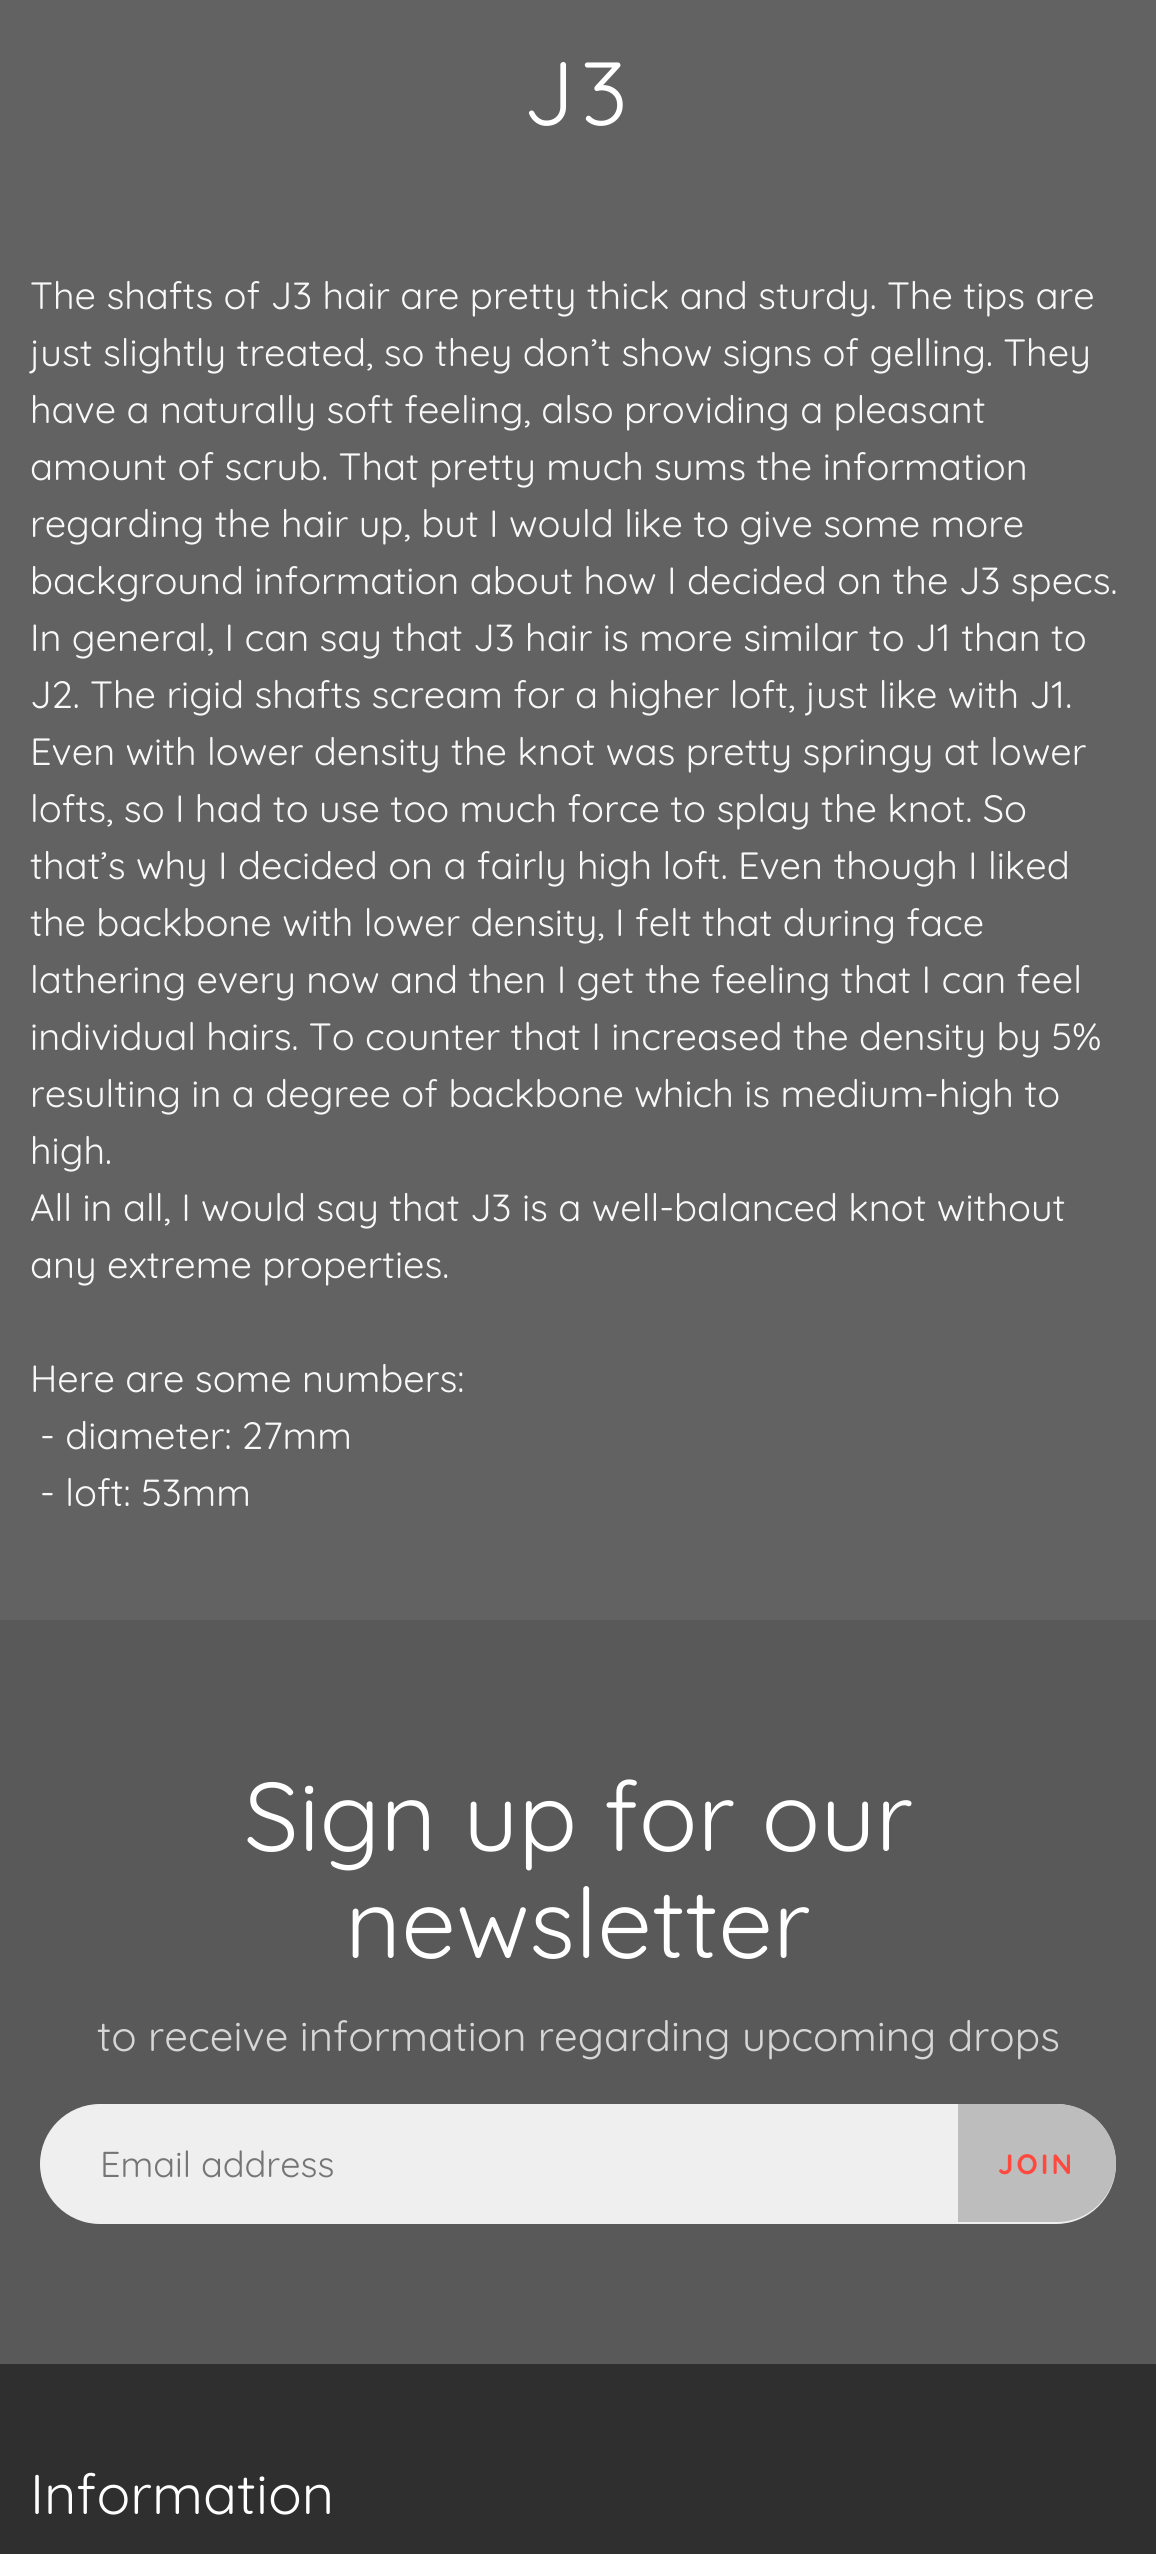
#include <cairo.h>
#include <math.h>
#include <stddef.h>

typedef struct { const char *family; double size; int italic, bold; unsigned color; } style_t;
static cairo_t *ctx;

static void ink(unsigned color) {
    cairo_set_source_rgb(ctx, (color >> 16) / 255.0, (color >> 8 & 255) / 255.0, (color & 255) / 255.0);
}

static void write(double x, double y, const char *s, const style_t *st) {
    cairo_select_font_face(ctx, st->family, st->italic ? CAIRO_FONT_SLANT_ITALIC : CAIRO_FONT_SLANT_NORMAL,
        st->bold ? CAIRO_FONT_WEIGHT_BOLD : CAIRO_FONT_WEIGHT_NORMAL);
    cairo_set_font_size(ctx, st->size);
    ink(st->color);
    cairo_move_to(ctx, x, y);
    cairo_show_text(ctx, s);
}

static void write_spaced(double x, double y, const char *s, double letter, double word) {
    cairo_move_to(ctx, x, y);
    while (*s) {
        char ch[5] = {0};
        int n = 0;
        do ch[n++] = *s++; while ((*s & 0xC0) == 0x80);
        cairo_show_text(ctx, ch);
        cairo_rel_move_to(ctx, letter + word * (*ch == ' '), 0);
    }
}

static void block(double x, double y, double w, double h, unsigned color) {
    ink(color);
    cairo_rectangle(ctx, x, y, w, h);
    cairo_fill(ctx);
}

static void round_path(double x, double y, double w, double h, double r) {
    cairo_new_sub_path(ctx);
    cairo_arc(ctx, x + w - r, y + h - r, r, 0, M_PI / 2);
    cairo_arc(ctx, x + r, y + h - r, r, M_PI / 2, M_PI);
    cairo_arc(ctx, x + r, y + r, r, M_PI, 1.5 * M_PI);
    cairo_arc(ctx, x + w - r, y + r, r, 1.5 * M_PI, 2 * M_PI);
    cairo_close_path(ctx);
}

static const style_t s1 = {"Quicksand", 38, 0, 0, 0xf8f8f8};
static const style_t s2 = {"Quicksand", 97.25, 0, 0, 0xffffff};
static const style_t s3 = {"Quicksand", 42, 0, 0, 0xd6d6d6};
static const style_t s4 = {"Quicksand", 36, 0, 0, 0x757575};
static const style_t s5 = {"Quicksand", 56, 0, 0, 0xffffff};

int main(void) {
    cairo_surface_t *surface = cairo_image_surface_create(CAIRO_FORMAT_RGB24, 1156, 2554);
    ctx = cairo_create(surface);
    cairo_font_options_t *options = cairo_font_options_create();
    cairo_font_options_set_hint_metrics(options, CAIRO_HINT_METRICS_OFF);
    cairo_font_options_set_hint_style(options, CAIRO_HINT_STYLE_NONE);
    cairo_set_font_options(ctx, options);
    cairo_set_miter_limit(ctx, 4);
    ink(0x626262);
    cairo_paint(ctx);
    cairo_select_font_face(ctx, "Quicksand", CAIRO_FONT_SLANT_NORMAL, CAIRO_FONT_WEIGHT_NORMAL);
    cairo_set_font_size(ctx, 90);
    ink(0xffffff);
    write_spaced(523, 125, "J3", 6, 0);
    write(30, 309, "The shafts of J3 hair are pretty thick and sturdy. The tips are", &s1);
    write(30, 366, "just slightly treated, so they don’t show signs of gelling. They", &s1);
    write(30, 423, "have a naturally soft feeling, also providing a pleasant", &s1);
    write(30, 480, "amount of scrub. That pretty much sums the information", &s1);
    write(30, 537, "regarding the hair up, but I would like to give some more", &s1);
    write(30, 594, "background information about how I decided on the J3 specs.", &s1);
    write(30, 651, "In general, I can say that J3 hair is more similar to J1 than to", &s1);
    write(30, 708, "J2. The rigid shafts scream for a higher loft, just like with J1.", &s1);
    write(30, 765, "Even with lower density the knot was pretty springy at lower", &s1);
    write(30, 822, "lofts, so I had to use too much force to splay the knot. So", &s1);
    write(30, 879, "that’s why I decided on a fairly high loft. Even though I liked", &s1);
    write(30, 936, "the backbone with lower density, I felt that during face", &s1);
    write(30, 993, "lathering every now and then I get the feeling that I can feel", &s1);
    write(30, 1050, "individual hairs. To counter that I increased the density by 5%", &s1);
    write(30, 1107, "resulting in a degree of backbone which is medium-high to", &s1);
    write(30, 1164, "high.", &s1);
    write(30, 1221, "All in all, I would say that J3 is a well-balanced knot without", &s1);
    write(30, 1278, "any extreme properties.", &s1);
    write(30, 1392, "Here are some numbers:", &s1);
    write(40, 1449, "- diameter: 27mm", &s1);
    write(40, 1506, "- loft: 53mm", &s1);
    block(0, 1620, 1156, 744, 0x595959);
    write(244, 1851, "Sign up for our", &s2);
    write(345, 1958, "newsletter", &s2);
    write(97, 2051, "to receive information regarding upcoming drops", &s3);
    cairo_set_source_rgba(ctx, 1, 1, 1, 0.9);
    round_path(40, 2104, 1076, 120, 60);
    cairo_fill(ctx);
    write(100, 2177, "Email address", &s4);
    ink(0xbdbdbd);
    cairo_new_path(ctx);
    cairo_move_to(ctx, 958, 2104);
    cairo_line_to(ctx, 1057, 2104);
    cairo_curve_to(ctx, 1089.5, 2104, 1116, 2130.5, 1116, 2163);
    cairo_curve_to(ctx, 1116, 2195.5, 1089.5, 2222, 1057, 2222);
    cairo_line_to(ctx, 958, 2222);
    cairo_close_path(ctx);
    cairo_fill(ctx);
    cairo_select_font_face(ctx, "Quicksand", CAIRO_FONT_SLANT_NORMAL, CAIRO_FONT_WEIGHT_BOLD);
    cairo_set_font_size(ctx, 28);
    ink(0xff493f);
    write_spaced(998, 2174, "JOIN", 3, 0);
    block(0, 2364, 1156, 190, 0x2f2f2f);
    write(30, 2514, "Information", &s5);
    cairo_surface_write_to_png(surface, "screenshot.png");
    cairo_font_options_destroy(options);
    cairo_destroy(ctx);
    cairo_surface_destroy(surface);
    return 0;
}
